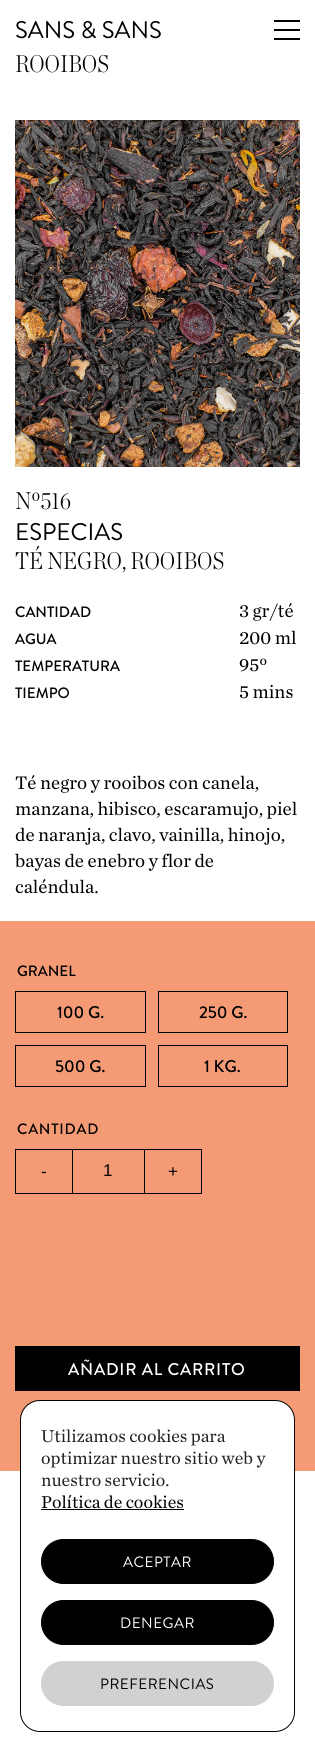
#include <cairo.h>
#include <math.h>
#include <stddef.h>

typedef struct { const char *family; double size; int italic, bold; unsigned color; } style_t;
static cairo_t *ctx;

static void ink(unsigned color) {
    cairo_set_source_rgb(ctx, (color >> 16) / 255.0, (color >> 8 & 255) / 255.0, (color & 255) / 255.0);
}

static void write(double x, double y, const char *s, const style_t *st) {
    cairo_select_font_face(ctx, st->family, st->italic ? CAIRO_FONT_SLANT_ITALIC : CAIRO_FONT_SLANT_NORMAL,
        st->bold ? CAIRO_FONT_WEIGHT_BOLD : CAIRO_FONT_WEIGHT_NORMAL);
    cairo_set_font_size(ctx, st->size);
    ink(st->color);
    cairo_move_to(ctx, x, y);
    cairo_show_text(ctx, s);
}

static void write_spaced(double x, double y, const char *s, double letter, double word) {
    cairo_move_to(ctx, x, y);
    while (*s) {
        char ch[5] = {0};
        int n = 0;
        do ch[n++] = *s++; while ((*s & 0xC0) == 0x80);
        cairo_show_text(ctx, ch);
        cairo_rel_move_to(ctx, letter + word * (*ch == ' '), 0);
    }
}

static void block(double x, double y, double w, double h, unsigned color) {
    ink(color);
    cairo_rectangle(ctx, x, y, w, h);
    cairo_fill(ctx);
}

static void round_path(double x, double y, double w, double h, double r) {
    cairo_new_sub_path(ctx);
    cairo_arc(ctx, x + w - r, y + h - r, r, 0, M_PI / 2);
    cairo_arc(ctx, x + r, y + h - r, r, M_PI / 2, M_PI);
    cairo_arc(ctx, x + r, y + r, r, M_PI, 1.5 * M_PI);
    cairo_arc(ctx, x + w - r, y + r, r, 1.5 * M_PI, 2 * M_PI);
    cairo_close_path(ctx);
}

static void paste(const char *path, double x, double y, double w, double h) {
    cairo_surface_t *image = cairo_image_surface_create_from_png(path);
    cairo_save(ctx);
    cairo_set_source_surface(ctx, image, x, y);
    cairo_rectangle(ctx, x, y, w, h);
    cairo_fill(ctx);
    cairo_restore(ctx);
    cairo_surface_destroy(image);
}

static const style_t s1 = {"Brandon Grotesque", 24, 0, 0, 0x000000};
static const style_t s2 = {"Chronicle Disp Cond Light", 24, 0, 0, 0x000000};
static const style_t s3 = {"Brandon Grotesque Medium", 15, 0, 0, 0x000000};
static const style_t s4 = {"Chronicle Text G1", 19, 0, 0, 0x000000};
static const style_t s5 = {"Brandon Grotesque Medium", 17, 0, 0, 0x000000};
static const style_t s6 = {"Chronicle Text G1", 18, 0, 0, 0x222222};
static const style_t s7 = {"Chronicle Text G1", 18, 0, 0, 0x000000};

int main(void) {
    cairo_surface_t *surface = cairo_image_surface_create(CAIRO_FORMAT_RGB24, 315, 1752);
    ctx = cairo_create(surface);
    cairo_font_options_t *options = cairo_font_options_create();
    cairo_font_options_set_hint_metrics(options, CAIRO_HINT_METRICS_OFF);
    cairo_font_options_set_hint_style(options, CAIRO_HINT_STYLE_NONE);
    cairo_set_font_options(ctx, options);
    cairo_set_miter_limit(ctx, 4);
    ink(0xffffff);
    cairo_paint(ctx);
    write(15, 38, "SANS & SANS", &s1);
    block(274, 29, 26, 2, 0x000000);
    block(274, 20, 26, 2, 0x000000);
    block(274, 38, 26, 2, 0x000000);
    write(15, 72, "ROOIBOS", &s2);
    paste("pic1.png", 15, 120, 285, 347);
    write(15, 509, "Nº516", &s2);
    write(15, 540, "ESPECIAS", &s1);
    write(15, 569, "TÉ NEGRO, ROOIBOS", &s2);
    write(15, 617, "CANTIDAD", &s3);
    write(239, 617, "3 gr/té", &s4);
    write(15, 644, "AGUA", &s3);
    write(239, 644, "200 ml", &s4);
    write(15, 671, "TEMPERATURA", &s3);
    write(239, 671, "95º", &s4);
    write(15, 698, "TIEMPO", &s3);
    write(239, 698, "5 mins", &s4);
    write(15, 789, "Té negro y rooibos con canela,", &s4);
    write(15, 815, "manzana, hibisco, escaramujo, piel", &s4);
    write(15, 841, "de naranja, clavo, vainilla, hinojo,", &s4);
    write(15, 867, "bayas de enebro y flor de", &s4);
    write(15, 893, "caléndula.", &s4);
    block(0, 921, 315, 550, 0xf49b76);
    write(17, 976, "GRANEL", &s3);
    cairo_rectangle(ctx, 15.5, 991.5, 130, 41);
    cairo_set_line_width(ctx, 1);
    cairo_stroke(ctx);
    write(57, 1018, "100 G.", &s5);
    cairo_rectangle(ctx, 158.5, 991.5, 129, 41);
    cairo_stroke(ctx);
    write(199, 1018, "250 G.", &s5);
    cairo_rectangle(ctx, 15.5, 1045.5, 130, 41);
    cairo_stroke(ctx);
    write(55, 1072, "500 G.", &s5);
    cairo_rectangle(ctx, 158.5, 1045.5, 129, 41);
    cairo_stroke(ctx);
    write(204, 1072, "1 KG.", &s5);
    cairo_set_font_size(ctx, 15);
    write_spaced(17, 1134, "CANTIDAD", 0.75, 0);
    cairo_rectangle(ctx, 15.5, 1149.5, 57, 44);
    cairo_stroke(ctx);
    cairo_select_font_face(ctx, "Liberation Sans", CAIRO_FONT_SLANT_NORMAL, CAIRO_FONT_WEIGHT_NORMAL);
    cairo_set_font_size(ctx, 17);
    write_spaced(41, 1177, "-", 0.75, 0);
    block(73, 1149, 71, 1, 0x000000);
    block(73, 1193, 71, 1, 0x000000);
    write_spaced(103, 1176, "1", 0.75, 0);
    cairo_rectangle(ctx, 144.5, 1149.5, 57, 44);
    cairo_stroke(ctx);
    write_spaced(168, 1177, "+", 0.75, 0);
    block(15, 1346, 285, 45, 0x000000);
    cairo_select_font_face(ctx, "Brandon Grotesque Medium", CAIRO_FONT_SLANT_NORMAL, CAIRO_FONT_WEIGHT_NORMAL);
    ink(0xffffff);
    write_spaced(68, 1375, "AÑADIR AL CARRITO", 0.75, 0);
    round_path(20.5, 1400.5, 274, 331, 19.5);
    cairo_fill_preserve(ctx);
    ink(0x000000);
    cairo_stroke(ctx);
    write(41, 1442, "Utilizamos cookies para", &s6);
    write(41, 1464, "optimizar nuestro sitio web y", &s6);
    write(41, 1486, "nuestro servicio.", &s6);
    write(41, 1508, "Política de cookies", &s7);
    block(41, 1509, 143, 1, 0x000000);
    round_path(41.5, 1539.5, 232, 44, 22);
    cairo_fill_preserve(ctx);
    cairo_stroke(ctx);
    cairo_select_font_face(ctx, "Brandon Grotesque", CAIRO_FONT_SLANT_NORMAL, CAIRO_FONT_WEIGHT_NORMAL);
    cairo_set_font_size(ctx, 15);
    ink(0xffffff);
    write_spaced(123, 1567, "ACEPTAR", 0.5, 0);
    ink(0x000000);
    round_path(41.5, 1600.5, 232, 44, 22);
    cairo_fill_preserve(ctx);
    cairo_stroke(ctx);
    ink(0xffffff);
    write_spaced(120, 1628, "DENEGAR", 0.5, 0);
    ink(0xd1d1d1);
    round_path(41.5, 1661.5, 232, 44, 22);
    cairo_fill_preserve(ctx);
    cairo_stroke(ctx);
    ink(0x000000);
    write_spaced(100, 1689, "PREFERENCIAS", 0.5, 0);
    cairo_surface_write_to_png(surface, "screenshot.png");
    cairo_font_options_destroy(options);
    cairo_destroy(ctx);
    cairo_surface_destroy(surface);
    return 0;
}
